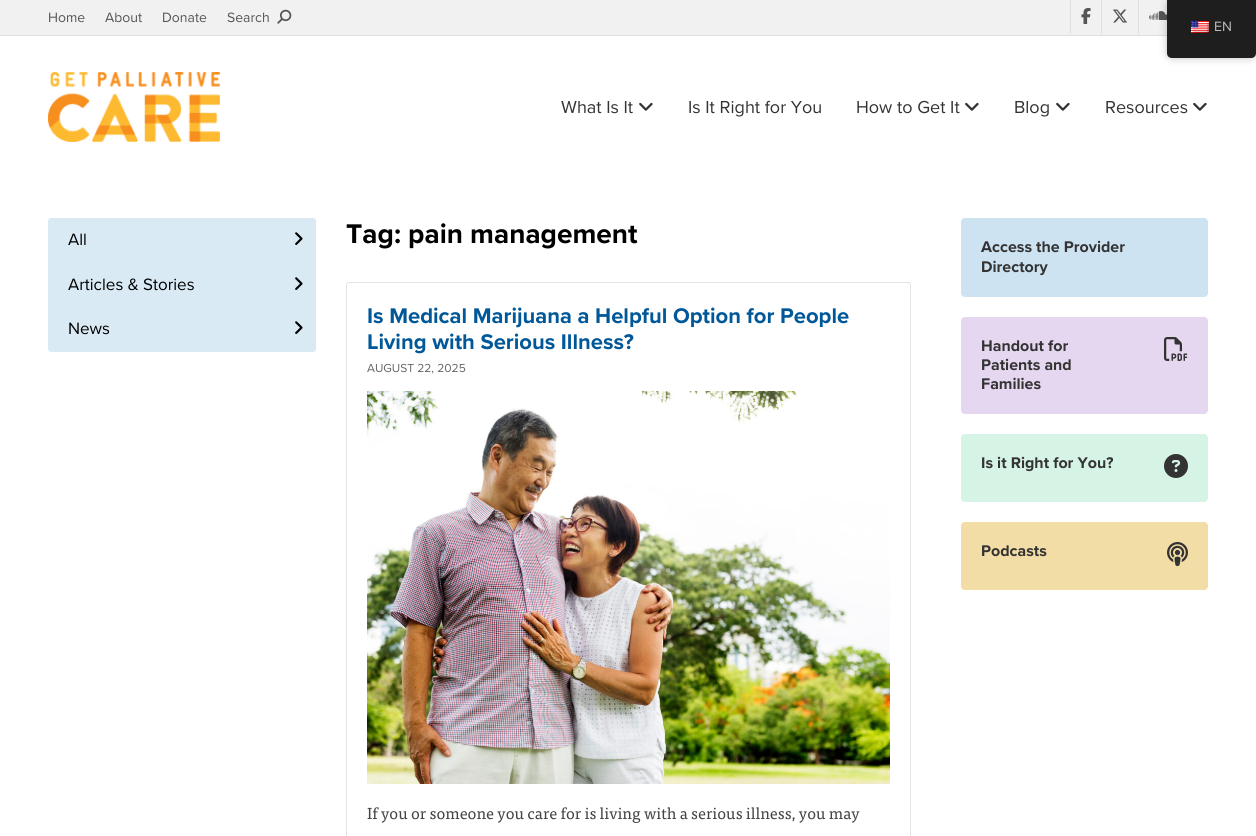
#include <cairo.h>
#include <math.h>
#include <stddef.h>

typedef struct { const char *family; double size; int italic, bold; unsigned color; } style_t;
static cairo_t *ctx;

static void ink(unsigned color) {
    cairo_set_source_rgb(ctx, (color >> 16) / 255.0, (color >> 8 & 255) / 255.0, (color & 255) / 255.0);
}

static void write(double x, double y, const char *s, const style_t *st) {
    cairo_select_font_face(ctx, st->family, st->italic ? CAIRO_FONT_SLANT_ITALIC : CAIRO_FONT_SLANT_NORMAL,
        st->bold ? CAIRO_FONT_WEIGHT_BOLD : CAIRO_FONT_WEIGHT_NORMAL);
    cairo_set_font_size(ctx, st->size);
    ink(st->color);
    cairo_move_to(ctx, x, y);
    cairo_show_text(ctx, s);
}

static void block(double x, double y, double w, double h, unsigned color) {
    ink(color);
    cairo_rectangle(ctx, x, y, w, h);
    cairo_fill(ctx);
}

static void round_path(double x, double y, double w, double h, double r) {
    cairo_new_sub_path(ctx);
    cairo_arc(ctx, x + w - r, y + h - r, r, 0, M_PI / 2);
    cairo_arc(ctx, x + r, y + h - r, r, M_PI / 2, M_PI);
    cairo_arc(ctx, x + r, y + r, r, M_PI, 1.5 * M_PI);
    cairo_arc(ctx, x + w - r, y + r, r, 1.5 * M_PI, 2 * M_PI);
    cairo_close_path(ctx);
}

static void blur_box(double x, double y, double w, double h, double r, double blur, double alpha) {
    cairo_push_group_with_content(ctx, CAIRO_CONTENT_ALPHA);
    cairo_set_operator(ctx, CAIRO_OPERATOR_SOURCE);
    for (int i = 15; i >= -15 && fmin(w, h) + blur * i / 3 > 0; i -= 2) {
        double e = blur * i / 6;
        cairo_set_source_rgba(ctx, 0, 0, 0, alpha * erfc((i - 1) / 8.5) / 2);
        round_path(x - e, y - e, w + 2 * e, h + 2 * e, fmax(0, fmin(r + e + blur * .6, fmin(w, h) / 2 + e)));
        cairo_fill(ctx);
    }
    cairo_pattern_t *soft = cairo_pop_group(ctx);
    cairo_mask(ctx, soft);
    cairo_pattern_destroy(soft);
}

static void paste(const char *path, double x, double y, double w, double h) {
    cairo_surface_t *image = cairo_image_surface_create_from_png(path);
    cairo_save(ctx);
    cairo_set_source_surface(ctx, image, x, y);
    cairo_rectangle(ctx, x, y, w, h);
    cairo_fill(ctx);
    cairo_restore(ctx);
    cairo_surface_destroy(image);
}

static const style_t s1 = {"Proxima Nova", 14, 0, 0, 0x555555};
static const style_t s2 = {"Proxima Nova", 18, 0, 0, 0x333333};
static const style_t s3 = {"Proxima Nova", 17, 0, 0, 0x000000};
static const style_t s4 = {"Proxima Nova", 28, 0, 1, 0x000000};
static const style_t s5 = {"Proxima Nova", 22, 0, 1, 0x005898};
static const style_t s6 = {"Proxima Nova", 12, 0, 0, 0x666666};
static const style_t s7 = {"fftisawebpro", 16, 0, 0, 0x444444};
static const style_t s8 = {"Proxima Nova", 16, 0, 1, 0x333333};
static const style_t s9 = {"Proxima Nova", 14, 0, 0, 0xbdbdbd};

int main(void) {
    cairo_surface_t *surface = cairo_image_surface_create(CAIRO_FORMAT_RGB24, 1256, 836);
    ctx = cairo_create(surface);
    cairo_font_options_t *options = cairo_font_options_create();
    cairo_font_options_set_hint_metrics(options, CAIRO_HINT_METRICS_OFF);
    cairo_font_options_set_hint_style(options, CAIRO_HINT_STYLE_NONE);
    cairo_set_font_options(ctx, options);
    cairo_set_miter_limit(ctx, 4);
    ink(0xffffff);
    cairo_paint(ctx);
    block(0, 0, 1167, 35, 0xf1f1f1);
    block(0, 35, 1167, 1, 0xdfdfdf);
    write(48, 22, "Home", &s1);
    write(105, 22, "About", &s1);
    write(162, 22, "Donate", &s1);
    write(227, 22, "Search", &s1);
    paste("pic1.png", 277, 9, 15, 15);
    block(1070, 0, 1, 34, 0xdfdfdf);
    paste("pic2.png", 1081, 8, 10, 16);
    block(1101, 0, 1, 34, 0xdfdfdf);
    paste("pic3.png", 1113, 9, 15, 14);
    block(1138, 0, 1, 34, 0xdfdfdf);
    paste("pic4.png", 1149, 11, 18, 9);
    paste("pic5.png", 48, 72, 172, 70);
    write(561, 113, "What Is It", &s2);
    paste("pic6.png", 639, 102, 14, 9);
    write(688, 113, "Is It Right for You", &s2);
    write(856, 113, "How to Get It", &s2);
    paste("pic6.png", 965, 102, 14, 9);
    write(1014, 113, "Blog", &s2);
    paste("pic6.png", 1056, 102, 14, 9);
    write(1105, 113, "Resources", &s2);
    paste("pic6.png", 1193, 102, 14, 9);
    ink(0xdaeaf5);
    round_path(48, 218, 268, 134, 3);
    cairo_fill(ctx);
    write(68, 245, "All", &s3);
    paste("pic7.png", 295, 232, 8, 13);
    write(68, 290, "Articles & Stories", &s3);
    paste("pic7.png", 295, 277, 8, 13);
    write(68, 334, "News", &s3);
    paste("pic7.png", 295, 321, 8, 13);
    write(346, 243, "Tag: pain management", &s4);
    round_path(346.5, 282.5, 564, 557, 2.5);
    ink(0xe4e4e4);
    cairo_set_line_width(ctx, 1);
    cairo_stroke(ctx);
    write(367, 323, "Is Medical Marijuana a Helpful Option for People", &s5);
    write(367, 349, "Living with Serious Illness?", &s5);
    write(367, 372, "AUGUST 22, 2025", &s6);
    paste("pic8.png", 367, 391, 523, 393);
    write(367, 819, "If you or someone you care for is living with a serious illness, you may", &s7);
    ink(0xcee3f2);
    round_path(961, 218, 247, 79, 4);
    cairo_fill(ctx);
    write(981, 252, "Access the Provider", &s8);
    write(981, 272, "Directory", &s8);
    ink(0xe5d7ef);
    round_path(961, 317, 247, 97, 4);
    cairo_fill(ctx);
    write(981, 351, "Handout for", &s8);
    write(981, 370, "Patients and", &s8);
    write(981, 389, "Families", &s8);
    paste("pic9.png", 1164, 337, 24, 24);
    ink(0xd5f4e6);
    round_path(961, 434, 247, 68, 4);
    cairo_fill(ctx);
    write(981, 468, "Is it Right for You?", &s8);
    paste("pic10.png", 1164, 454, 24, 24);
    ink(0xf3dda6);
    round_path(961, 522, 247, 68, 4);
    cairo_fill(ctx);
    write(981, 556, "Podcasts", &s8);
    paste("pic11.png", 1167, 542, 21, 24);
    ink(0x000000);
    blur_box(1167, 0, 89, 58, 5, 4, 0.25);
    ink(0x1e1e1e);
    cairo_new_path(ctx);
    cairo_move_to(ctx, 1167, 0);
    cairo_line_to(ctx, 1256, 0);
    cairo_line_to(ctx, 1256, 53);
    cairo_curve_to(ctx, 1256, 56, 1254, 58, 1251, 58);
    cairo_line_to(ctx, 1172, 58);
    cairo_curve_to(ctx, 1169, 58, 1167, 56, 1167, 53);
    cairo_close_path(ctx);
    cairo_fill(ctx);
    paste("pic12.png", 1191, 21, 18, 12);
    write(1214, 31, "EN", &s9);
    cairo_surface_write_to_png(surface, "screenshot.png");
    cairo_font_options_destroy(options);
    cairo_destroy(ctx);
    cairo_surface_destroy(surface);
    return 0;
}
